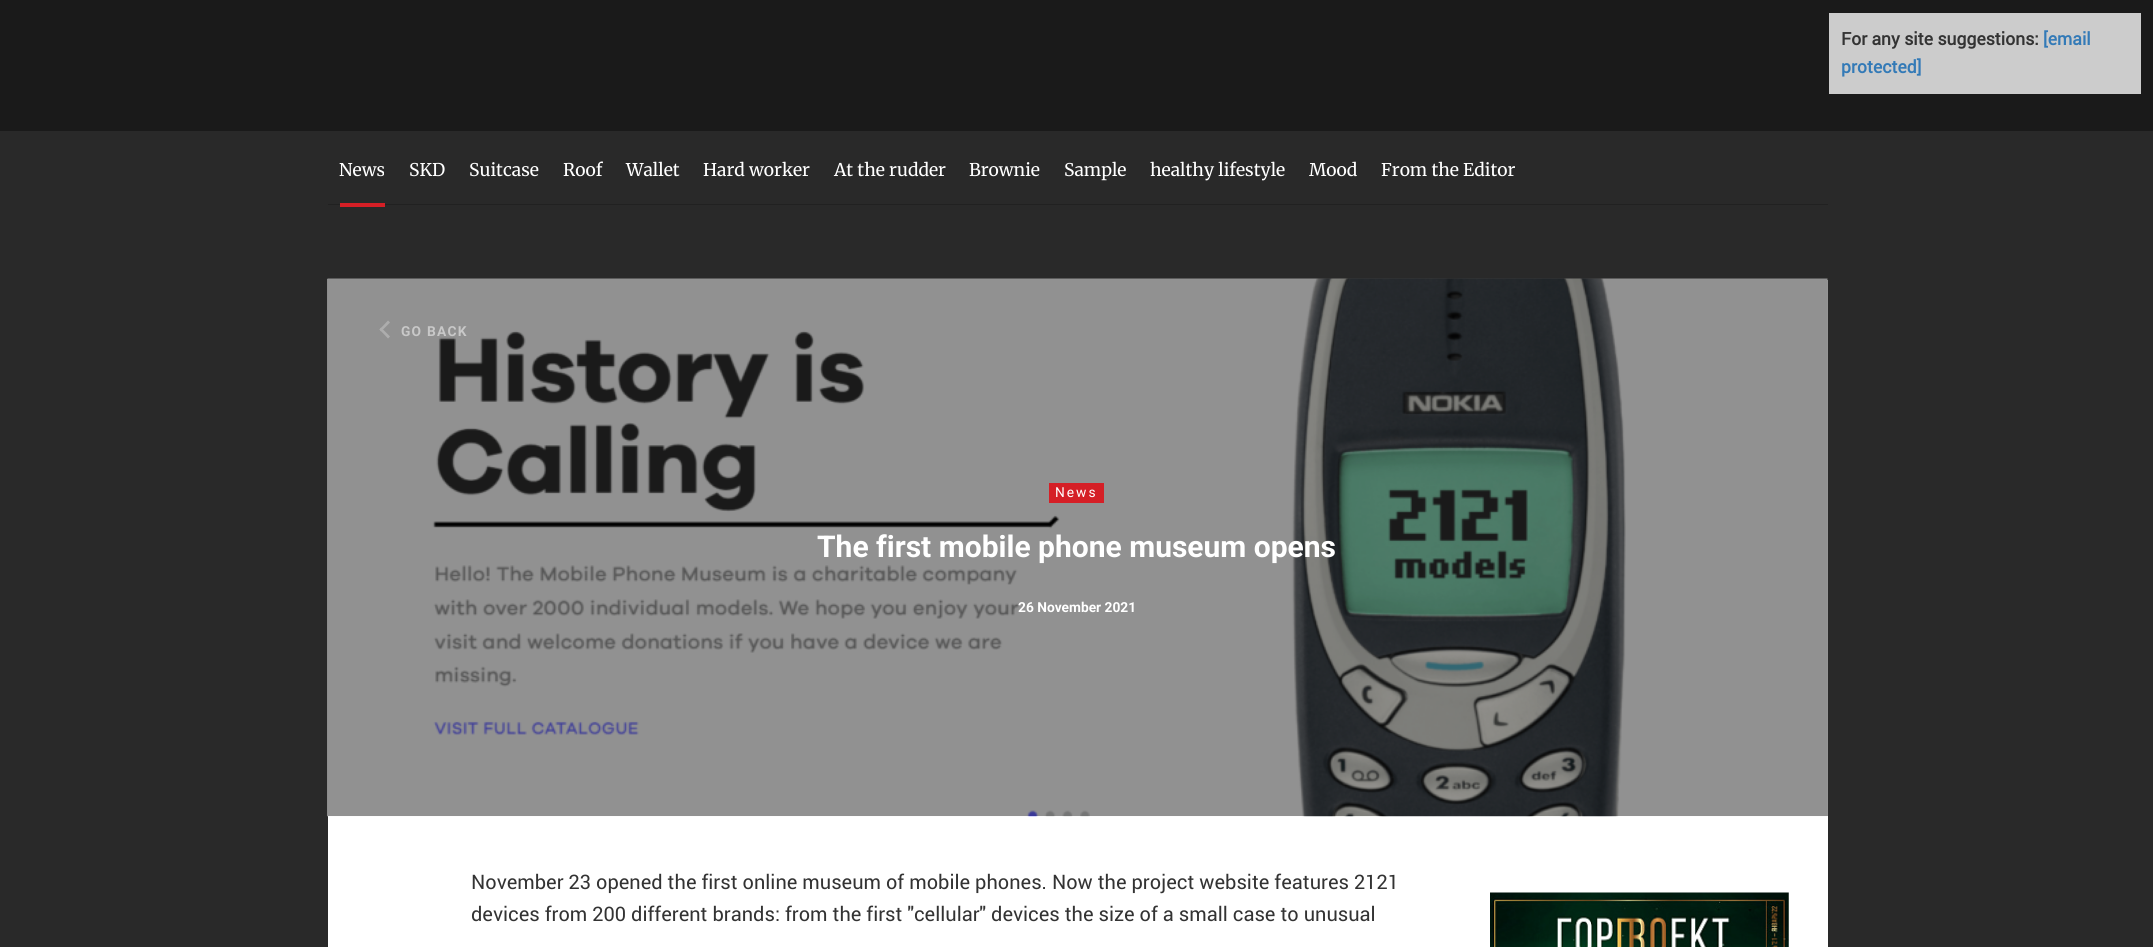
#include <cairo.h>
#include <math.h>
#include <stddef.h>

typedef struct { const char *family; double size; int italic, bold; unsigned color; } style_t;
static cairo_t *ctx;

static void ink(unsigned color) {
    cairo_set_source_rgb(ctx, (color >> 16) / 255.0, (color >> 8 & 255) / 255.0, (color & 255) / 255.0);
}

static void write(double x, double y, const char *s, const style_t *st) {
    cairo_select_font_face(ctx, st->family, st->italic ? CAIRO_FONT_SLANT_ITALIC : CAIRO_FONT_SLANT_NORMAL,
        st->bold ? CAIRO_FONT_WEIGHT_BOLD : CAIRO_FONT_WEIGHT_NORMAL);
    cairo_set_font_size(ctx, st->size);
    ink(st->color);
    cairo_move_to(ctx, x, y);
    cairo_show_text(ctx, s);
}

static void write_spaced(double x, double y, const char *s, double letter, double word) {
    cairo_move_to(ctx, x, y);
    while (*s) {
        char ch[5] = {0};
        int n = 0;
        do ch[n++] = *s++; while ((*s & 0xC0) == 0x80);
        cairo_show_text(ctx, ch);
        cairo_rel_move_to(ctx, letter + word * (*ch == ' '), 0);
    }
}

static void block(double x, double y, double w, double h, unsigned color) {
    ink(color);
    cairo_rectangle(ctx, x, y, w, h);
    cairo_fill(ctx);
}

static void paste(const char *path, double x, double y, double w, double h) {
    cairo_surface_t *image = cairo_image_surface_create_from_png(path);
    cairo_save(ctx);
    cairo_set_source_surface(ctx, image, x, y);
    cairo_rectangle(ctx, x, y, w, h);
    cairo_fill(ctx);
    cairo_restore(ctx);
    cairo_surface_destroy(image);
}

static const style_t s1 = {"Roboto", 17.5, 0, 1, 0x333333};
static const style_t s2 = {"Roboto", 17.5, 0, 1, 0x337ab7};
static const style_t s3 = {"Merriweather", 17.5, 0, 0, 0xffffff};
static const style_t s4 = {"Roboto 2", 30, 0, 1, 0xffffff};
static const style_t s5 = {"Roboto 2", 13.75, 0, 1, 0xffffff};
static const style_t s6 = {"Roboto", 20, 0, 0, 0x333333};

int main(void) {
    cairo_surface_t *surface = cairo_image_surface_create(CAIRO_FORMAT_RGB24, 2153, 947);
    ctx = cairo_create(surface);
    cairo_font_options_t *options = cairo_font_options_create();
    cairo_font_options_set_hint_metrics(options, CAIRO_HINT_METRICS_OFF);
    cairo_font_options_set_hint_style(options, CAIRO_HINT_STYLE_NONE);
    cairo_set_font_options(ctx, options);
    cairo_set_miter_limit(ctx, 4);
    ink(0x292929);
    cairo_paint(ctx);
    block(1827, 279, 1, 1, 0x191919);
    block(0, 0, 2153, 131, 0x1a1a1a);
    block(1829, 13, 312, 81, 0xcccccc);
    write(1841, 45, "For any site suggestions:", &s1);
    write(2043, 45, "[email", &s2);
    write(1841, 73, "protected]", &s2);
    block(328, 204, 1500, 1, 0x212121);
    write(339, 176, "News", &s3);
    block(340, 203, 45, 4, 0xd51f26);
    write(409, 176, "SKD", &s3);
    write(469, 176, "Suitcase", &s3);
    write(563, 176, "Roof", &s3);
    write(626, 176, "Wallet", &s3);
    write(703, 176, "Hard worker", &s3);
    write(834, 176, "At the rudder", &s3);
    write(969, 176, "Brownie", &s3);
    write(1064, 176, "Sample", &s3);
    write(1150, 176, "healthy lifestyle", &s3);
    write(1309, 176, "Mood", &s3);
    write(1381, 176, "From the Editor", &s3);
    block(328, 816, 1500, 131, 0xffffff);
    block(1827, 280, 1, 536, 0x999999);
    paste("pic1.png", 327, 278, 1501, 539);
    ink(0xadadad);
    cairo_new_path(ctx);
    cairo_move_to(ctx, 379.5, 329.5);
    cairo_line_to(ctx, 388, 320.5);
    cairo_line_to(ctx, 390, 322.5);
    cairo_line_to(ctx, 381, 331.5);
    cairo_close_path(ctx);
    cairo_fill(ctx);
    cairo_new_path(ctx);
    cairo_move_to(ctx, 379.5, 329.5);
    cairo_line_to(ctx, 381, 327.5);
    cairo_line_to(ctx, 390, 336.5);
    cairo_line_to(ctx, 388, 338.5);
    cairo_close_path(ctx);
    cairo_fill(ctx);
    cairo_select_font_face(ctx, "Roboto 2", CAIRO_FONT_SLANT_NORMAL, CAIRO_FONT_WEIGHT_BOLD);
    cairo_set_font_size(ctx, 13.75);
    ink(0xc8c8c8);
    write_spaced(401, 336, "GO BACK", 1.25, 0);
    block(1049, 483, 55, 20, 0xd51f26);
    cairo_select_font_face(ctx, "Roboto 2", CAIRO_FONT_SLANT_NORMAL, CAIRO_FONT_WEIGHT_NORMAL);
    ink(0xffffff);
    write_spaced(1055, 497, "News", 2, 0);
    write(817, 557, "The first mobile phone museum opens", &s4);
    write(1018, 612, "26 November 2021", &s5);
    write(471, 889, "November 23 opened the first online museum of mobile phones. Now the project website features 2121", &s6);
    write(471, 921, "devices from 200 different brands: from the first \"cellular\" devices the size of a small case to unusual", &s6);
    paste("pic2.png", 1490, 892, 299, 55);
    cairo_surface_write_to_png(surface, "screenshot.png");
    cairo_font_options_destroy(options);
    cairo_destroy(ctx);
    cairo_surface_destroy(surface);
    return 0;
}
